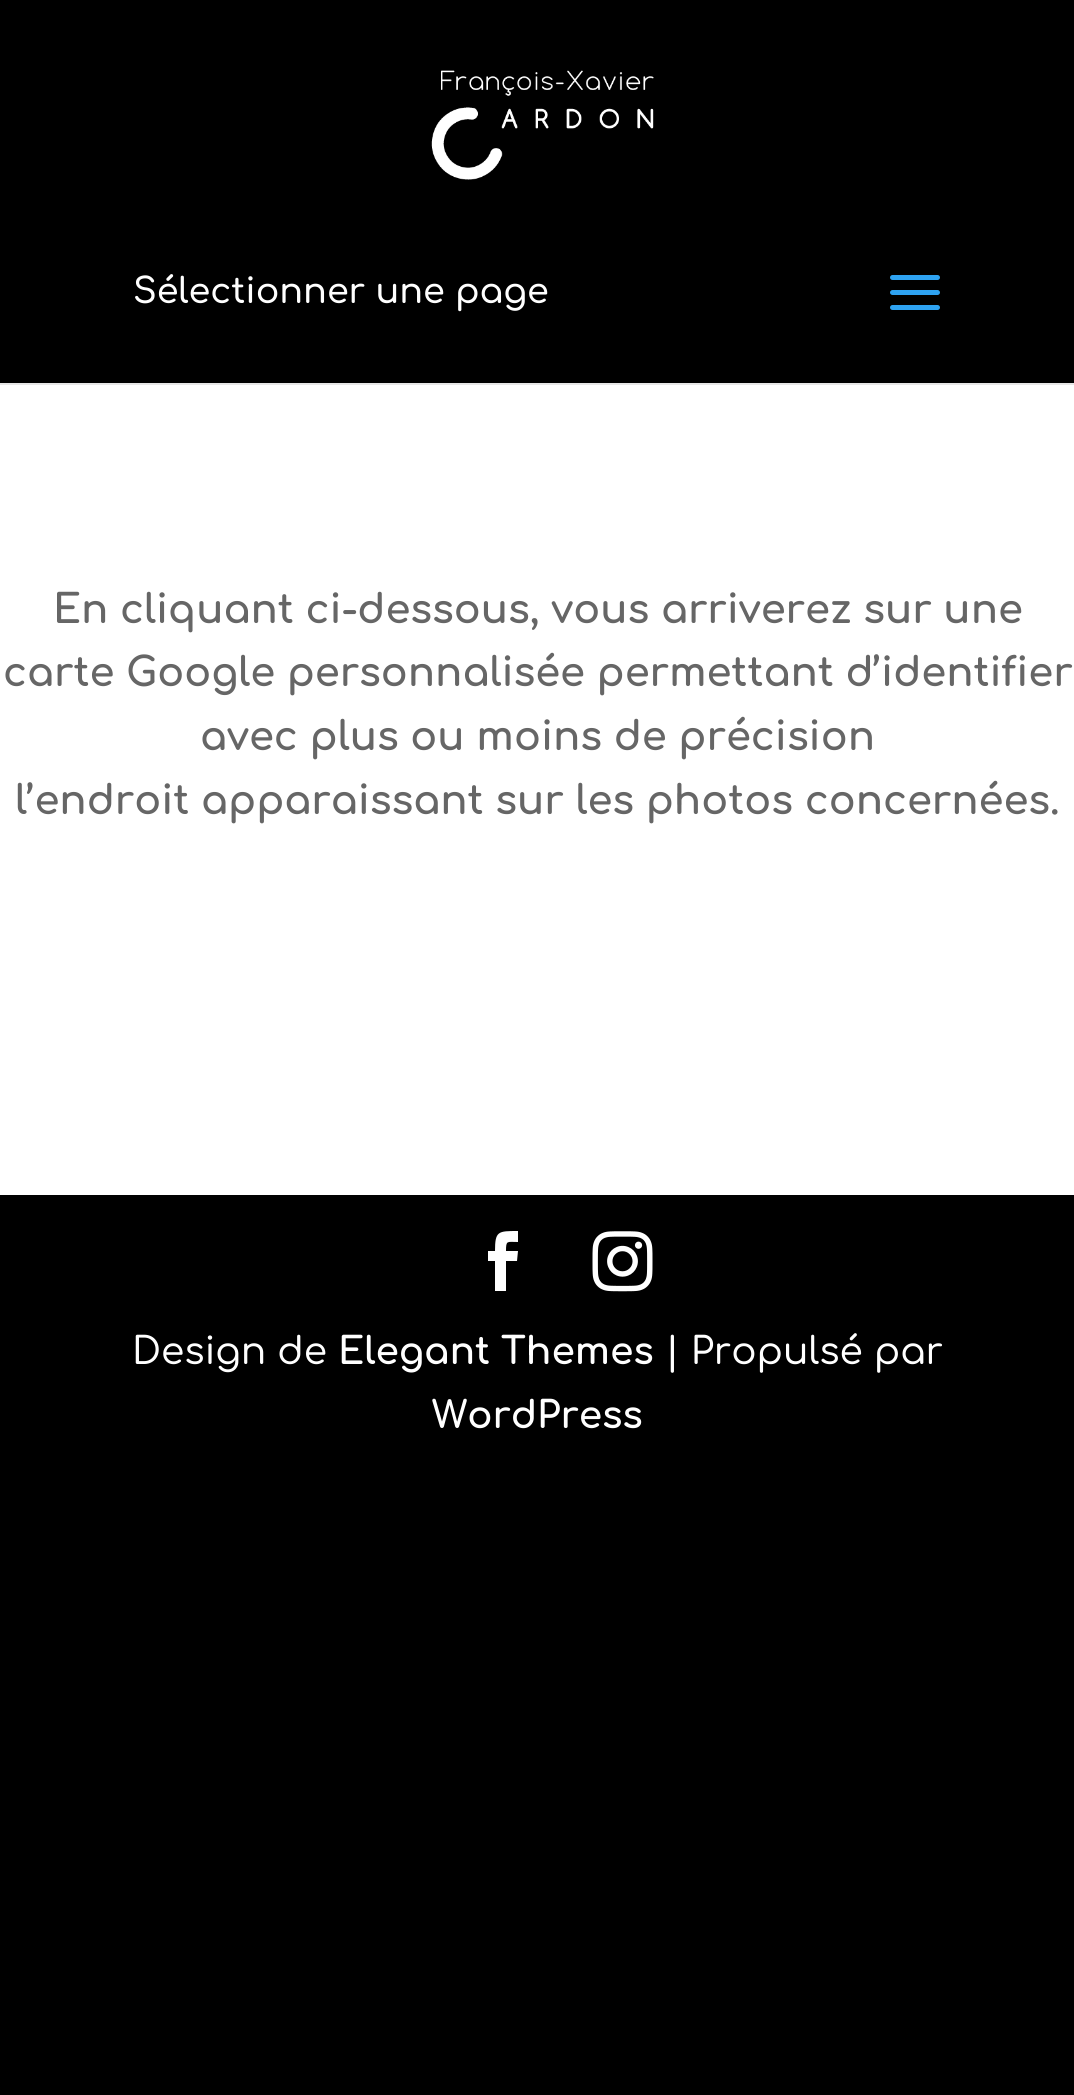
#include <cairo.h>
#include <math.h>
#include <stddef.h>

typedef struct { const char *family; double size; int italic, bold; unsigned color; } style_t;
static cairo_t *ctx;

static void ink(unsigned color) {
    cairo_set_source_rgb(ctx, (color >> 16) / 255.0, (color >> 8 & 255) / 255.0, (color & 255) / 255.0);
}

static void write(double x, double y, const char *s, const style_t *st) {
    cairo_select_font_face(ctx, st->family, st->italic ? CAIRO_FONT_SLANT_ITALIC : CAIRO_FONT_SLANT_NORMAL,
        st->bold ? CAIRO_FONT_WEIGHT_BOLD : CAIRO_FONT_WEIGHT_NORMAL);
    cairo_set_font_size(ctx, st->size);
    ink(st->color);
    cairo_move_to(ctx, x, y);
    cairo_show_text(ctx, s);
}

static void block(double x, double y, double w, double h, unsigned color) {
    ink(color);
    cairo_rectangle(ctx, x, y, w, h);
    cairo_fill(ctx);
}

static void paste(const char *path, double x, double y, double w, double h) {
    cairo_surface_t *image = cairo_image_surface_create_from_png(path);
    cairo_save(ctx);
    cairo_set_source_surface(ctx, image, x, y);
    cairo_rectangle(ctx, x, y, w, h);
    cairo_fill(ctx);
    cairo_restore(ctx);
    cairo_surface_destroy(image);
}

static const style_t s1 = {"Comfortaa SemiBold", 35, 0, 0, 0xffffff};
static const style_t s2 = {"Comfortaa", 40, 0, 1, 0x666666};
static const style_t s3 = {"Comfortaa Medium", 37.5, 0, 0, 0xffffff};
static const style_t s4 = {"Comfortaa", 37.5, 0, 1, 0xffffff};

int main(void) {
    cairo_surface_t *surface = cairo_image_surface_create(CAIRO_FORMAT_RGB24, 1074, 2095);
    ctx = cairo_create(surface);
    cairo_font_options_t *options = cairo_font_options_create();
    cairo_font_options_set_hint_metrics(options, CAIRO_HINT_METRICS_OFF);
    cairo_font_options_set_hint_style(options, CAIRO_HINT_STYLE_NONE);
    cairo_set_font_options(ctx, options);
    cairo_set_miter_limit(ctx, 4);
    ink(0x000000);
    cairo_paint(ctx);
    block(0, 383, 1074, 2, 0xe6e6e6);
    paste("pic1.png", 431, 70, 223, 110);
    write(133, 303, "Sélectionner une page", &s1);
    paste("pic2.png", 890, 275, 50, 35);
    block(0, 385, 1074, 810, 0xffffff);
    write(53, 623, "En cliquant ci-dessous, vous arriverez sur une", &s2);
    write(3, 686, "carte Google personnalisée permettant d’identifier", &s2);
    write(200, 750, "avec plus ou moins de précision", &s2);
    write(15, 814, "l’endroit apparaissant sur les photos concernées.", &s2);
    ink(0xffffff);
    cairo_new_path(ctx);
    cairo_move_to(ctx, 495, 1291);
    cairo_line_to(ctx, 506, 1291);
    cairo_line_to(ctx, 506, 1261);
    cairo_line_to(ctx, 517, 1261);
    cairo_line_to(ctx, 518, 1251);
    cairo_line_to(ctx, 506, 1251);
    cairo_curve_to(ctx, 506, 1240, 507, 1242, 518, 1242);
    cairo_line_to(ctx, 518, 1231);
    cairo_curve_to(ctx, 498, 1231, 495, 1231, 495, 1251);
    cairo_line_to(ctx, 488, 1251);
    cairo_line_to(ctx, 488, 1261);
    cairo_line_to(ctx, 495, 1261);
    cairo_close_path(ctx);
    cairo_fill(ctx);
    paste("pic3.png", 592, 1231, 61, 61);
    write(132, 1364, "Design de", &s3);
    write(338, 1364, "Elegant Themes", &s4);
    write(665, 1364, "| Propulsé par", &s3);
    write(432, 1428, "WordPress", &s4);
    cairo_surface_write_to_png(surface, "screenshot.png");
    cairo_font_options_destroy(options);
    cairo_destroy(ctx);
    cairo_surface_destroy(surface);
    return 0;
}
